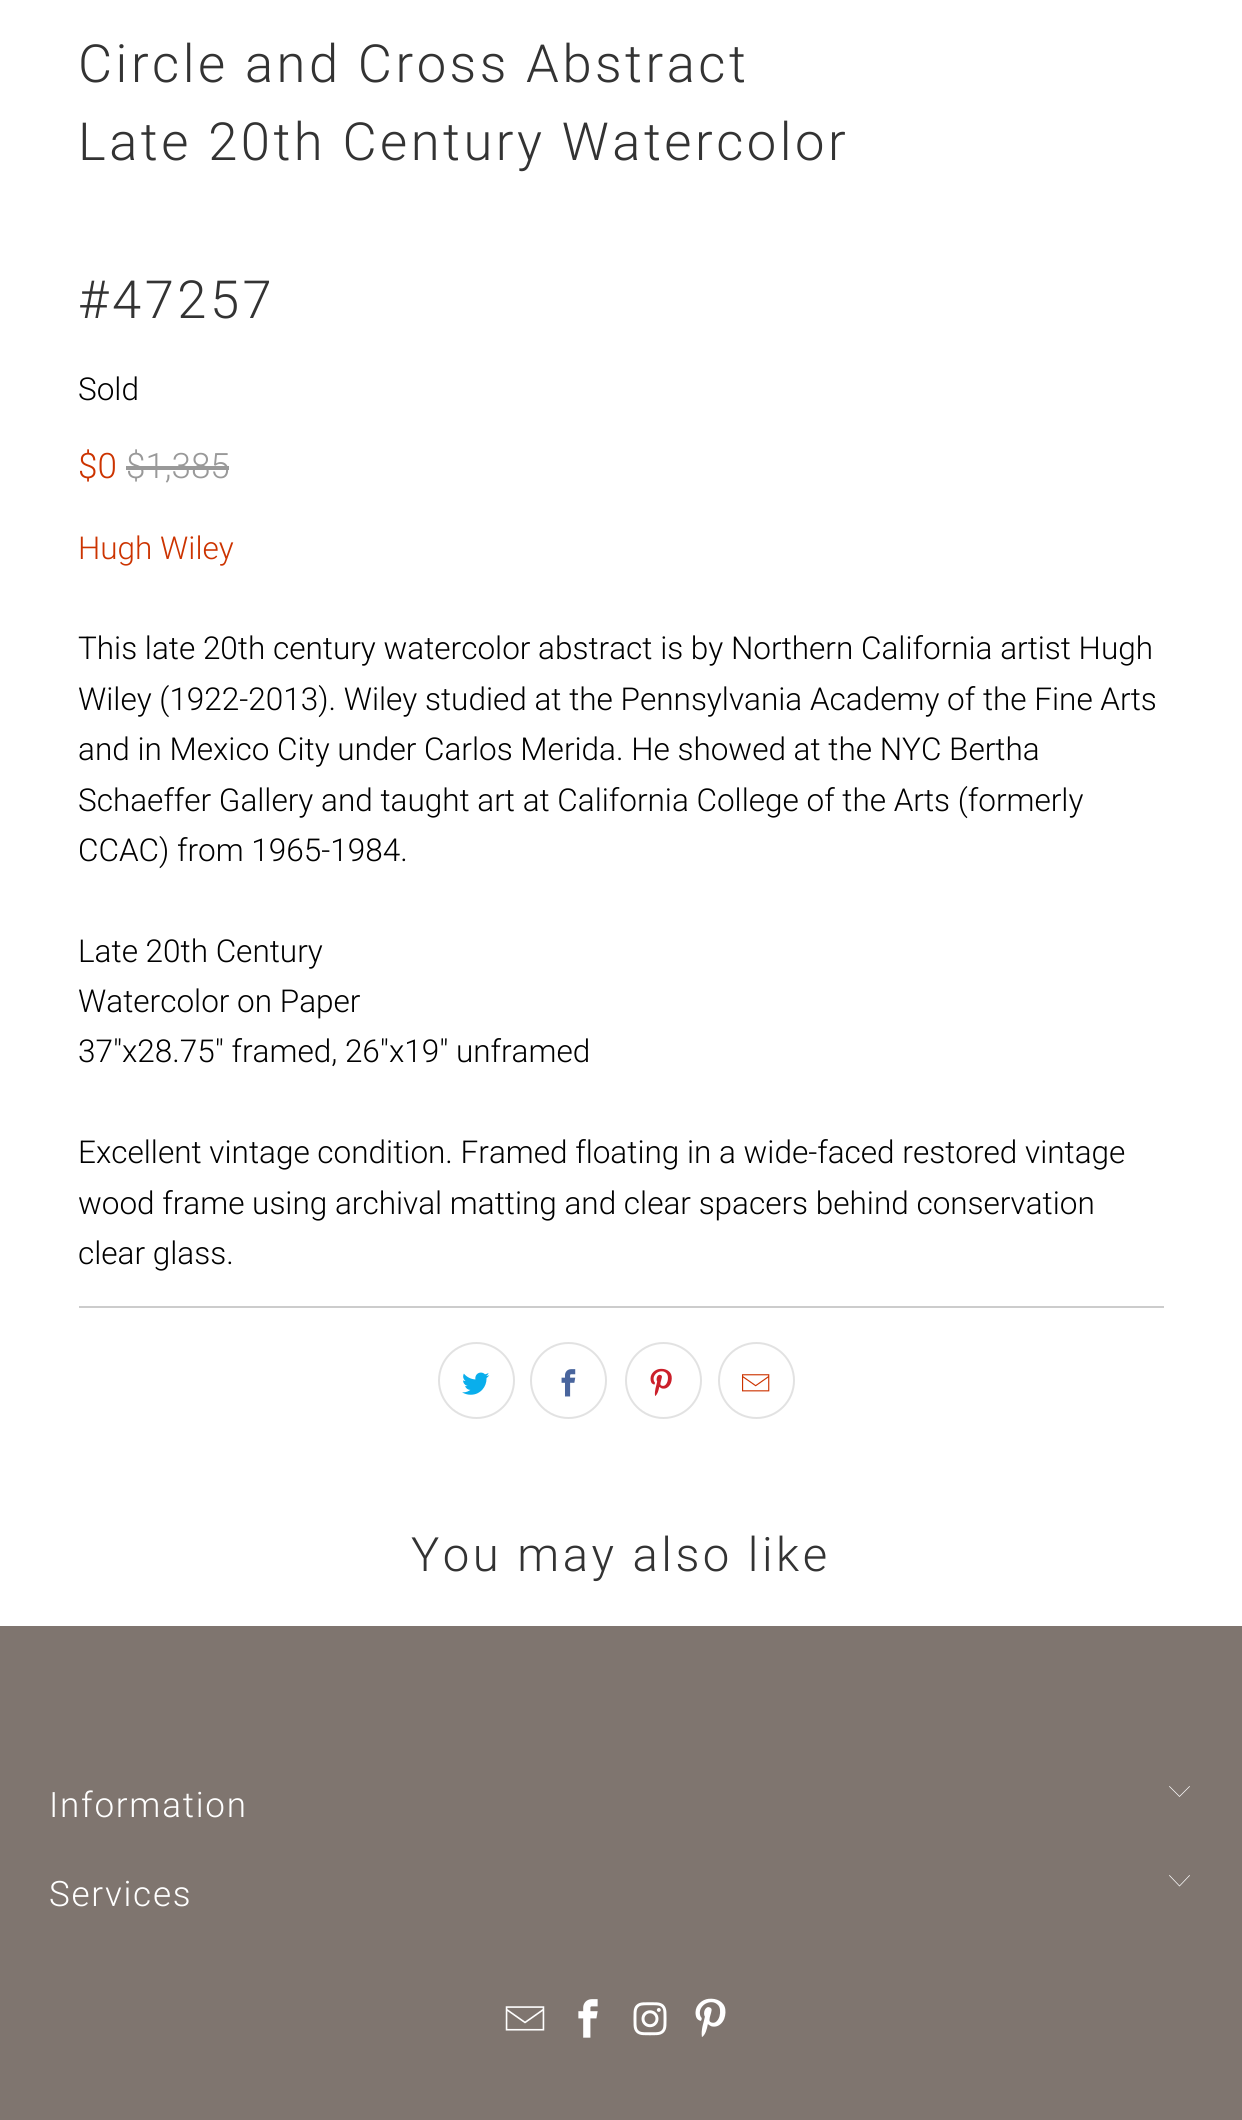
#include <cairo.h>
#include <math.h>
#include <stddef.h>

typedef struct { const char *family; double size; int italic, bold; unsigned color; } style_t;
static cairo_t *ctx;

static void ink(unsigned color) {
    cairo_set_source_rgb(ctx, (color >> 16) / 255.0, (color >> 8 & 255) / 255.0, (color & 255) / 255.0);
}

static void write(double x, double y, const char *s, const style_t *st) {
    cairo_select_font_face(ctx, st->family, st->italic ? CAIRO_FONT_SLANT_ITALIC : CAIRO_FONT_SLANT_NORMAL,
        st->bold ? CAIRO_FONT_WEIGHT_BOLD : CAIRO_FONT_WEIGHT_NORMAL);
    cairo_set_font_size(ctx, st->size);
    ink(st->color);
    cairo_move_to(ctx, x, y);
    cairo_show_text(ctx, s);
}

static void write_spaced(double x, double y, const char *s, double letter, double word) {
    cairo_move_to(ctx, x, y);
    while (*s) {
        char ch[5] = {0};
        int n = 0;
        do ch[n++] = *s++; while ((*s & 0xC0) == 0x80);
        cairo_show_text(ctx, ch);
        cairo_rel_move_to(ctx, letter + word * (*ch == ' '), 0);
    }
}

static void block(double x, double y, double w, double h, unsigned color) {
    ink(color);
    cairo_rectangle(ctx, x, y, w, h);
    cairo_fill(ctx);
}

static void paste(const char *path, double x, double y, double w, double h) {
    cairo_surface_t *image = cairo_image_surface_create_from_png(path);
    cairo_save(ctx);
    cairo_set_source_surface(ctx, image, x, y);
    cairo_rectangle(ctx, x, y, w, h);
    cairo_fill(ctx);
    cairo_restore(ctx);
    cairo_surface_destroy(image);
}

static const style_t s1 = {"Roboto Light", 31.5, 0, 0, 0x000000};
static const style_t s2 = {"Roboto Light", 35, 0, 0, 0xcc3300};
static const style_t s3 = {"Roboto Light", 35, 0, 0, 0x999999};
static const style_t s4 = {"Roboto Light", 31.5, 0, 0, 0xcc3300};

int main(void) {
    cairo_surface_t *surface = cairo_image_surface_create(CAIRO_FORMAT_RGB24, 1242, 2120);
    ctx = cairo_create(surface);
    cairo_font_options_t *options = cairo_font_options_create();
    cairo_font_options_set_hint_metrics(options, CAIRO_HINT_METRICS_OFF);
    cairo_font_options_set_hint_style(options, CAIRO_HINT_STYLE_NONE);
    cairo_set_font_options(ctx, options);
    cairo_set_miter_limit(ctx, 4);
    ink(0xffffff);
    cairo_paint(ctx);
    cairo_select_font_face(ctx, "Roboto Light", CAIRO_FONT_SLANT_NORMAL, CAIRO_FONT_WEIGHT_NORMAL);
    cairo_set_font_size(ctx, 52.5);
    ink(0x333333);
    write_spaced(78, 82, "Circle and Cross Abstract", 3.5, 0);
    write_spaced(78, 160, "Late 20th Century Watercolor", 3.5, 0);
    write_spaced(78, 318, "#47257", 3.5, 0);
    write(78, 400, "Sold", &s1);
    write(78, 478, "$0", &s2);
    write(126, 478, "$1,385", &s3);
    block(126, 466, 103, 4, 0x999999);
    write(78, 559, "Hugh Wiley", &s4);
    write(78, 659, "This late 20th century watercolor abstract is by Northern California artist Hugh", &s1);
    write(78, 710, "Wiley (1922-2013). Wiley studied at the Pennsylvania Academy of the Fine Arts", &s1);
    write(78, 760, "and in Mexico City under Carlos Merida. He showed at the NYC Bertha", &s1);
    write(78, 811, "Schaeffer Gallery and taught art at California College of the Arts (formerly", &s1);
    write(78, 861, "CCAC) from 1965-1984.", &s1);
    write(78, 962, "Late 20th Century", &s1);
    write(78, 1012, "Watercolor on Paper", &s1);
    write(78, 1062, "37\"x28.75\" framed, 26\"x19\" unframed", &s1);
    write(78, 1163, "Excellent vintage condition. Framed floating in a wide-faced restored vintage", &s1);
    write(78, 1214, "wood frame using archival matting and clear spacers behind conservation", &s1);
    write(78, 1264, "clear glass.", &s1);
    block(79, 1306, 1085, 2, 0xcccccc);
    cairo_new_path(ctx);
    cairo_arc(ctx, 476.5, 1380.5, 37.5, 0, 2 * M_PI);
    ink(0xe2e2e2);
    cairo_stroke(ctx);
    paste("pic1.png", 462, 1372, 28, 23);
    cairo_arc(ctx, 568.5, 1380.5, 37.5, 0, 2 * M_PI);
    cairo_stroke(ctx);
    paste("pic2.png", 561, 1369, 15, 28);
    cairo_arc(ctx, 663.5, 1380.5, 37.5, 0, 2 * M_PI);
    cairo_stroke(ctx);
    paste("pic3.png", 650, 1368, 22, 28);
    cairo_arc(ctx, 756.5, 1380.5, 37.5, 0, 2 * M_PI);
    cairo_stroke(ctx);
    paste("pic4.png", 742, 1374, 28, 18);
    cairo_set_font_size(ctx, 47.25);
    ink(0x333333);
    write_spaced(411, 1571, "You may also like", 3.5, 0);
    block(0, 1626, 1242, 494, 0x7f756f);
    cairo_set_font_size(ctx, 35);
    ink(0xffffff);
    write_spaced(49, 1817, "Information", 1.75, 0);
    cairo_new_path(ctx);
    cairo_move_to(ctx, 1179.5, 1797);
    cairo_line_to(ctx, 1169, 1786.5);
    cairo_line_to(ctx, 1169.5, 1786);
    cairo_line_to(ctx, 1179.5, 1796);
    cairo_line_to(ctx, 1189.5, 1786);
    cairo_line_to(ctx, 1190, 1786.5);
    cairo_close_path(ctx);
    cairo_fill(ctx);
    write_spaced(49, 1906, "Services", 1.75, 0);
    cairo_new_path(ctx);
    cairo_move_to(ctx, 1179.5, 1886.5);
    cairo_line_to(ctx, 1169, 1875.5);
    cairo_line_to(ctx, 1169.5, 1875);
    cairo_line_to(ctx, 1179.5, 1885.5);
    cairo_line_to(ctx, 1189.5, 1875);
    cairo_line_to(ctx, 1190, 1875.5);
    cairo_close_path(ctx);
    cairo_fill(ctx);
    paste("pic5.png", 505, 2006, 40, 25);
    paste("pic6.png", 578, 1999, 20, 39);
    paste("pic7.png", 633, 2002, 34, 34);
    paste("pic8.png", 695, 1998, 31, 39);
    cairo_surface_write_to_png(surface, "screenshot.png");
    cairo_font_options_destroy(options);
    cairo_destroy(ctx);
    cairo_surface_destroy(surface);
    return 0;
}
